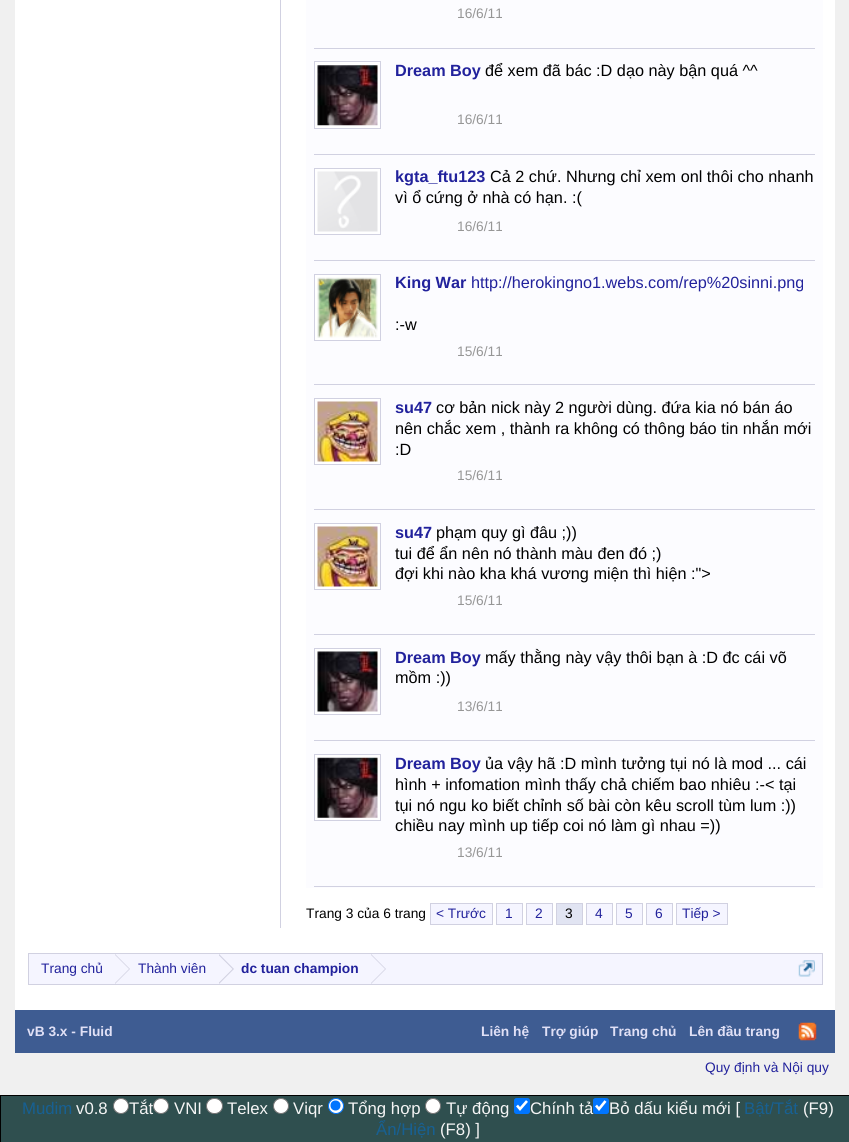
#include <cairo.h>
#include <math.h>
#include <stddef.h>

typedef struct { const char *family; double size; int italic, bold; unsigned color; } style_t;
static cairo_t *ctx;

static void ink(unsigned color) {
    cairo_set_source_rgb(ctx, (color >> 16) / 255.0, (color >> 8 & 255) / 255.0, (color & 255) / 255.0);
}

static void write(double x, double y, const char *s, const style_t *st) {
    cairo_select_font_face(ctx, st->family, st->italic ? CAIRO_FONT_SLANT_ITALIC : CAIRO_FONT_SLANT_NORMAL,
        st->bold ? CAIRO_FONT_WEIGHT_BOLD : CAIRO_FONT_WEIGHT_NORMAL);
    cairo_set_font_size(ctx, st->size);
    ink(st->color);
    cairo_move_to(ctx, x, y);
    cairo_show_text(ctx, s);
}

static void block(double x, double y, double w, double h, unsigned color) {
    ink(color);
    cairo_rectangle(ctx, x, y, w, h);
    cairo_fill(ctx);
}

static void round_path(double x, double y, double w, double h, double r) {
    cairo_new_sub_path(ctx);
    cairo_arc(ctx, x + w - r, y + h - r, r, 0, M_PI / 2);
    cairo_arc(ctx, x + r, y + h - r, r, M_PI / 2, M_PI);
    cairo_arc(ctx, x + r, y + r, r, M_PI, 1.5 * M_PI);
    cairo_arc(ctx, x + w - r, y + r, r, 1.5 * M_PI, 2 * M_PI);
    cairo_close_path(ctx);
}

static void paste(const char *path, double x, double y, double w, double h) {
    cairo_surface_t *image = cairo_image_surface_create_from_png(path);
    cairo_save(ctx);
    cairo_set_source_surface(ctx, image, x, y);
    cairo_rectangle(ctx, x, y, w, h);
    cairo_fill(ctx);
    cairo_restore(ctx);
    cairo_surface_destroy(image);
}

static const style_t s1 = {"Liberation Sans", 13.75, 0, 0, 0x969696};
static const style_t s2 = {"Liberation Sans", 16.25, 0, 1, 0x22229c};
static const style_t s3 = {"Liberation Sans", 16.25, 0, 0, 0x000000};
static const style_t s4 = {"Liberation Sans", 16.25, 0, 0, 0x22229c};
static const style_t s5 = {"Liberation Sans", 13.75, 0, 0, 0x000000};
static const style_t s6 = {"Liberation Sans", 13.75, 0, 0, 0x22229c};
static const style_t s7 = {"Liberation Sans", 13.75, 0, 1, 0x22229c};
static const style_t s8 = {"Liberation Sans", 13.75, 0, 1, 0xe0e0f6};
static const style_t s9 = {"Liberation Sans", 16.75, 0, 0, 0x176093};
static const style_t s10 = {"Liberation Sans", 16.75, 0, 0, 0xf5f5f5};

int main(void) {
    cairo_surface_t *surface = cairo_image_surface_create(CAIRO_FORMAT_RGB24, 849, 1142);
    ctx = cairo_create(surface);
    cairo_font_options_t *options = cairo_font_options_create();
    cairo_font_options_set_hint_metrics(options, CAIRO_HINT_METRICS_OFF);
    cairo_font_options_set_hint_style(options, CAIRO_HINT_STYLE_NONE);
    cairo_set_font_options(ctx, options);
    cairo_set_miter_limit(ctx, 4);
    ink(0xf0f0f0);
    cairo_paint(ctx);
    block(15, 0, 820, 1010, 0xffffff);
    block(280, 0, 1, 928, 0xd1d1e1);
    block(306, 0, 517, 888, 0xfcfcff);
    block(314, 48, 501, 1, 0xd1d1e1);
    write(457, 18, "16/6/11", &s1);
    block(314, 154, 501, 1, 0xd1d1e1);
    ink(0xffffff);
    cairo_rectangle(ctx, 314.5, 61.5, 66, 67);
    cairo_fill_preserve(ctx);
    ink(0xd1d1e1);
    cairo_set_line_width(ctx, 1);
    cairo_stroke(ctx);
    paste("pic1.png", 317, 65, 61, 61);
    write(395, 76, "Dream Boy", &s2);
    write(485, 76, "để xem đã bác :D dạo này bận quá ^^", &s3);
    write(457, 124, "16/6/11", &s1);
    block(314, 260, 501, 1, 0xd1d1e1);
    ink(0xffffff);
    cairo_rectangle(ctx, 314.5, 168.5, 66, 66);
    cairo_fill_preserve(ctx);
    ink(0xd1d1e1);
    cairo_stroke(ctx);
    paste("pic2.png", 317, 171, 61, 61);
    write(395, 182, "kgta_ftu123", &s2);
    write(490, 182, "Cả 2 chứ. Nhưng chỉ xem onl thôi cho nhanh", &s3);
    write(395, 203, "vì ổ cứng ở nhà có hạn. :(", &s3);
    write(457, 231, "16/6/11", &s1);
    block(314, 384, 501, 1, 0xd1d1e1);
    ink(0xffffff);
    cairo_rectangle(ctx, 314.5, 274.5, 66, 66);
    cairo_fill_preserve(ctx);
    ink(0xd1d1e1);
    cairo_stroke(ctx);
    paste("pic3.png", 317, 277, 61, 61);
    write(395, 288, "King War", &s2);
    write(471, 288, "http://herokingno1.webs.com/rep%20sinni.png", &s4);
    write(395, 330, ":-w", &s3);
    write(457, 356, "15/6/11", &s1);
    block(314, 509, 501, 1, 0xd1d1e1);
    ink(0xffffff);
    cairo_rectangle(ctx, 314.5, 398.5, 66, 66);
    cairo_fill_preserve(ctx);
    ink(0xd1d1e1);
    cairo_stroke(ctx);
    paste("pic4.png", 317, 401, 61, 61);
    write(395, 413, "su47", &s2);
    write(436, 413, "cơ bản nick này 2 người dùng. đứa kia nó bán áo", &s3);
    write(395, 434, "nên chắc xem , thành ra không có thông báo tin nhắn mới", &s3);
    write(395, 455, ":D", &s3);
    write(457, 480, "15/6/11", &s1);
    block(314, 634, 501, 1, 0xd1d1e1);
    ink(0xffffff);
    cairo_rectangle(ctx, 314.5, 523.5, 66, 66);
    cairo_fill_preserve(ctx);
    ink(0xd1d1e1);
    cairo_stroke(ctx);
    paste("pic4.png", 317, 526, 61, 61);
    write(395, 538, "su47", &s2);
    write(436, 538, "phạm quy gì đâu ;))", &s3);
    write(395, 559, "tui để ẩn nên nó thành màu đen đó ;)", &s3);
    write(395, 579, "đợi khi nào kha khá vương miện thì hiện :\">", &s3);
    write(457, 605, "15/6/11", &s1);
    block(314, 740, 501, 1, 0xd1d1e1);
    ink(0xffffff);
    cairo_rectangle(ctx, 314.5, 648.5, 66, 66);
    cairo_fill_preserve(ctx);
    ink(0xd1d1e1);
    cairo_stroke(ctx);
    paste("pic5.png", 317, 651, 61, 61);
    write(395, 663, "Dream Boy", &s2);
    write(485, 663, "mấy thằng này vậy thôi bạn à :D đc cái võ", &s3);
    write(395, 683, "mồm :))", &s3);
    write(457, 711, "13/6/11", &s1);
    block(314, 886, 501, 1, 0xd1d1e1);
    ink(0xffffff);
    cairo_rectangle(ctx, 314.5, 754.5, 66, 66);
    cairo_fill_preserve(ctx);
    ink(0xd1d1e1);
    cairo_stroke(ctx);
    paste("pic6.png", 317, 757, 61, 61);
    write(395, 769, "Dream Boy", &s2);
    write(485, 769, "ủa vậy hã :D mình tưởng tụi nó là mod ... cái", &s3);
    write(395, 790, "hình + infomation mình thấy chả chiếm bao nhiêu :-< tại", &s3);
    write(395, 811, "tụi nó ngu ko biết chỉnh số bài còn kêu scroll tùm lum :))", &s3);
    write(395, 831, "chiều nay mình up tiếp coi nó làm gì nhau =))", &s3);
    write(457, 857, "13/6/11", &s1);
    write(306, 918, "Trang 3 của 6 trang", &s5);
    ink(0xf5f5ff);
    cairo_rectangle(ctx, 430.5, 903.5, 62, 21);
    cairo_fill_preserve(ctx);
    ink(0xd1d1e1);
    cairo_stroke(ctx);
    write(436, 918, "< Trước", &s6);
    ink(0xf5f5ff);
    cairo_rectangle(ctx, 496.5, 903.5, 26, 21);
    cairo_fill_preserve(ctx);
    ink(0xd1d1e1);
    cairo_stroke(ctx);
    write(505, 918, "1", &s6);
    ink(0xf5f5ff);
    cairo_rectangle(ctx, 526.5, 903.5, 26, 21);
    cairo_fill_preserve(ctx);
    ink(0xd1d1e1);
    cairo_stroke(ctx);
    write(535, 918, "2", &s6);
    ink(0xe1e4f2);
    cairo_rectangle(ctx, 556.5, 903.5, 26, 21);
    cairo_fill_preserve(ctx);
    ink(0xd1d1e1);
    cairo_stroke(ctx);
    write(565, 918, "3", &s5);
    ink(0xf5f5ff);
    cairo_rectangle(ctx, 586.5, 903.5, 26, 21);
    cairo_fill_preserve(ctx);
    ink(0xd1d1e1);
    cairo_stroke(ctx);
    write(595, 918, "4", &s6);
    ink(0xf5f5ff);
    cairo_rectangle(ctx, 616.5, 903.5, 26, 21);
    cairo_fill_preserve(ctx);
    ink(0xd1d1e1);
    cairo_stroke(ctx);
    write(625, 918, "5", &s6);
    ink(0xf5f5ff);
    cairo_rectangle(ctx, 646.5, 903.5, 26, 21);
    cairo_fill_preserve(ctx);
    ink(0xd1d1e1);
    cairo_stroke(ctx);
    write(655, 918, "6", &s6);
    ink(0xf5f5ff);
    cairo_rectangle(ctx, 676.5, 903.5, 51, 21);
    cairo_fill_preserve(ctx);
    ink(0xd1d1e1);
    cairo_stroke(ctx);
    write(682, 918, "Tiếp >", &s6);
    ink(0xf5f5ff);
    cairo_rectangle(ctx, 28.5, 953.5, 794, 31);
    cairo_fill_preserve(ctx);
    ink(0xd1d1e1);
    cairo_stroke(ctx);
    write(41, 973, "Trang chủ", &s6);
    ink(0xd1d1e1);
    cairo_new_path(ctx);
    cairo_move_to(ctx, 115, 984);
    cairo_line_to(ctx, 115, 954);
    cairo_line_to(ctx, 130, 969);
    cairo_close_path(ctx);
    cairo_fill(ctx);
    ink(0xf5f5ff);
    cairo_new_path(ctx);
    cairo_move_to(ctx, 114, 984);
    cairo_line_to(ctx, 114, 954);
    cairo_line_to(ctx, 129, 969);
    cairo_close_path(ctx);
    cairo_fill(ctx);
    write(138, 973, "Thành viên", &s6);
    ink(0xd1d1e1);
    cairo_new_path(ctx);
    cairo_move_to(ctx, 219, 984);
    cairo_line_to(ctx, 219, 954);
    cairo_line_to(ctx, 234, 969);
    cairo_close_path(ctx);
    cairo_fill(ctx);
    ink(0xf5f5ff);
    cairo_new_path(ctx);
    cairo_move_to(ctx, 217.5, 984);
    cairo_line_to(ctx, 217.5, 954);
    cairo_line_to(ctx, 232.5, 969);
    cairo_close_path(ctx);
    cairo_fill(ctx);
    write(241, 973, "dc tuan champion", &s7);
    ink(0xd1d1e1);
    cairo_new_path(ctx);
    cairo_move_to(ctx, 371, 984);
    cairo_line_to(ctx, 371, 954);
    cairo_line_to(ctx, 386, 969);
    cairo_close_path(ctx);
    cairo_fill(ctx);
    ink(0xf5f5ff);
    cairo_new_path(ctx);
    cairo_move_to(ctx, 370, 984);
    cairo_line_to(ctx, 370, 954);
    cairo_line_to(ctx, 385, 969);
    cairo_close_path(ctx);
    cairo_fill(ctx);
    paste("pic7.png", 798, 960, 17, 17);
    block(15, 1010, 820, 43, 0x3e5c92);
    write(27, 1036, "vB 3.x - Fluid", &s8);
    write(481, 1036, "Liên hệ", &s8);
    write(542, 1036, "Trợ giúp", &s8);
    write(610, 1036, "Trang chủ", &s8);
    write(689, 1036, "Lên đầu trang", &s8);
    paste("pic8.png", 798, 1022, 19, 19);
    write(705, 1072, "Quy định và Nội quy", &s6);
    ink(0x2f4f4f);
    cairo_rectangle(ctx, 0.5, 1095.5, 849, 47);
    cairo_fill_preserve(ctx);
    ink(0x000000);
    cairo_stroke(ctx);
    write(22, 1114, "Mudim", &s9);
    write(76, 1114, "v0.8", &s10);
    ink(0xffffff);
    cairo_new_path(ctx);
    cairo_arc(ctx, 121, 1106, 7.5, 0, 2 * M_PI);
    cairo_fill_preserve(ctx);
    ink(0x767676);
    cairo_stroke(ctx);
    write(129, 1114, "Tắt", &s10);
    ink(0xffffff);
    cairo_new_path(ctx);
    cairo_arc(ctx, 161, 1106, 7.5, 0, 2 * M_PI);
    cairo_fill_preserve(ctx);
    ink(0x767676);
    cairo_stroke(ctx);
    write(174, 1114, "VNI", &s10);
    ink(0xffffff);
    round_path(206.5, 1098.5, 16, 15, 7.5);
    cairo_fill_preserve(ctx);
    ink(0x767676);
    cairo_stroke(ctx);
    write(227, 1114, "Telex", &s10);
    ink(0xffffff);
    cairo_new_path(ctx);
    cairo_arc(ctx, 281, 1106, 7.5, 0, 2 * M_PI);
    cairo_fill_preserve(ctx);
    ink(0x767676);
    cairo_stroke(ctx);
    write(293, 1114, "Viqr", &s10);
    ink(0xffffff);
    cairo_new_path(ctx);
    cairo_arc(ctx, 336, 1106, 7.5, 0, 2 * M_PI);
    cairo_fill_preserve(ctx);
    ink(0x0075ff);
    cairo_stroke(ctx);
    cairo_arc(ctx, 335.5, 1105.5, 5, 0, 2 * M_PI);
    cairo_fill(ctx);
    write(348, 1114, "Tổng hợp", &s10);
    ink(0xffffff);
    cairo_new_path(ctx);
    cairo_arc(ctx, 433, 1106, 7.5, 0, 2 * M_PI);
    cairo_fill_preserve(ctx);
    ink(0x767676);
    cairo_stroke(ctx);
    write(446, 1114, "Tự động", &s10);
    ink(0x0075ff);
    round_path(514, 1098, 16, 16, 2.5);
    cairo_fill(ctx);
    cairo_new_path(ctx);
    cairo_move_to(ctx, 517, 1105.5);
    cairo_line_to(ctx, 520, 1109);
    cairo_line_to(ctx, 527, 1101);
    ink(0xffffff);
    cairo_set_line_width(ctx, 2.6);
    cairo_stroke(ctx);
    write(530, 1114, "Chính tả", &s10);
    ink(0x0075ff);
    round_path(593, 1098, 16, 16, 2.5);
    cairo_fill(ctx);
    cairo_new_path(ctx);
    cairo_move_to(ctx, 596, 1105.5);
    cairo_line_to(ctx, 599, 1109);
    cairo_line_to(ctx, 605.5, 1101);
    ink(0xffffff);
    cairo_stroke(ctx);
    write(609, 1114, "Bỏ dấu kiểu mới [", &s10);
    write(744, 1114, "Bật/Tắt", &s9);
    write(803, 1114, "(F9)", &s10);
    write(376, 1135, "Ẩn/Hiện", &s9);
    write(440, 1135, "(F8) ]", &s10);
    cairo_surface_write_to_png(surface, "screenshot.png");
    cairo_font_options_destroy(options);
    cairo_destroy(ctx);
    cairo_surface_destroy(surface);
    return 0;
}
